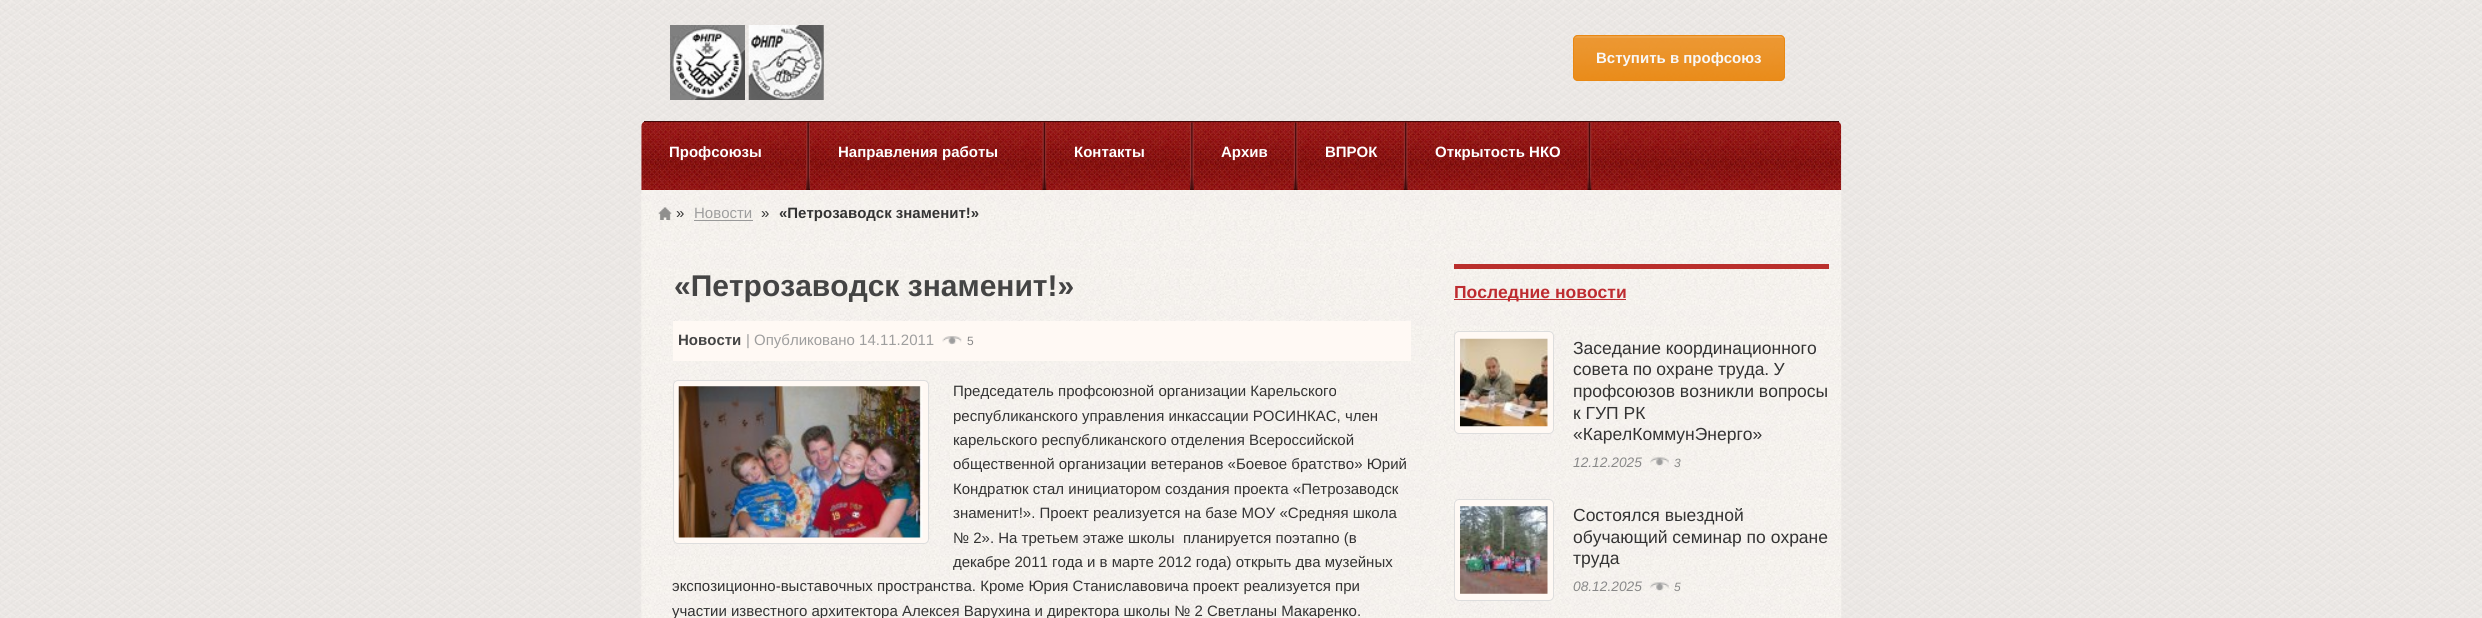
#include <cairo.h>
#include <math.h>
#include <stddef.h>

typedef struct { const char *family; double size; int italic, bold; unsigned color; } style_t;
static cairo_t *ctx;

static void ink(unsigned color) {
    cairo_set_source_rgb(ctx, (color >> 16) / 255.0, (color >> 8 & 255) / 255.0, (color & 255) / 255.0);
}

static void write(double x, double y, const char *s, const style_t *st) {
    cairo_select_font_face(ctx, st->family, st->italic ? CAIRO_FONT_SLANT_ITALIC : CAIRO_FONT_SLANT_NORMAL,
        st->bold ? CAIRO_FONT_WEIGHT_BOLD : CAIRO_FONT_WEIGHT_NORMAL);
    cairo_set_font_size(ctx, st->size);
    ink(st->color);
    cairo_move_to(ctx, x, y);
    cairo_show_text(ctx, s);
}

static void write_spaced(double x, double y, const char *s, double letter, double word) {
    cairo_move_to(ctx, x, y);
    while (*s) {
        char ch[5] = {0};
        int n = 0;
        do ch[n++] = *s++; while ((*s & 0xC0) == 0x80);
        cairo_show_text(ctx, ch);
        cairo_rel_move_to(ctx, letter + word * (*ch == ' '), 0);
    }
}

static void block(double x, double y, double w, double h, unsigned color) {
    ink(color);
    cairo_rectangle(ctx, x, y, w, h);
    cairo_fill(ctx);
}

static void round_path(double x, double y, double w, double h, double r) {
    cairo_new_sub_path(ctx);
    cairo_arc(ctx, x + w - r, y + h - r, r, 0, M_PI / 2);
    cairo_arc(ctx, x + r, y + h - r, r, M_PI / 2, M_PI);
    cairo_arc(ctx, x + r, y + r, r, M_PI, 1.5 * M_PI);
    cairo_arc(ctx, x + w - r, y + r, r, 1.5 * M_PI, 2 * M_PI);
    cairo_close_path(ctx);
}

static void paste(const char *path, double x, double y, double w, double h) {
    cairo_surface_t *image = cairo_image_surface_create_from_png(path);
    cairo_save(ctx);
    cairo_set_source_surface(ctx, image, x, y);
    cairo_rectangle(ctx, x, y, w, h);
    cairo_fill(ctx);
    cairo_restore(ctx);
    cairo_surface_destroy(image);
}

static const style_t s1 = {"Liberation Sans", 15, 0, 1, 0xf8f8f8};
static const style_t s2 = {"Liberation Sans", 15, 0, 1, 0xffffff};
static const style_t s3 = {"Liberation Sans", 15, 0, 0, 0x333333};
static const style_t s4 = {"Liberation Sans", 15, 0, 0, 0x9e9e9e};
static const style_t s5 = {"Liberation Sans", 15, 0, 1, 0x333333};
static const style_t s6 = {"Liberation Sans", 30, 0, 1, 0x444444};
static const style_t s7 = {"Liberation Sans", 15, 0, 1, 0x444444};
static const style_t s8 = {"Liberation Sans", 12, 0, 0, 0x888888};
static const style_t s9 = {"Liberation Sans", 17.5, 0, 1, 0xbe2c30};
static const style_t s10 = {"Liberation Sans", 17.5, 0, 0, 0x333333};
static const style_t s11 = {"Liberation Sans", 13.75, 1, 0, 0x888888};
static const style_t s12 = {"Liberation Sans", 12, 1, 0, 0x888888};

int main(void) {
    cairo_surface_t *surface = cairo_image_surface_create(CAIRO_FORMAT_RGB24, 2482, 618);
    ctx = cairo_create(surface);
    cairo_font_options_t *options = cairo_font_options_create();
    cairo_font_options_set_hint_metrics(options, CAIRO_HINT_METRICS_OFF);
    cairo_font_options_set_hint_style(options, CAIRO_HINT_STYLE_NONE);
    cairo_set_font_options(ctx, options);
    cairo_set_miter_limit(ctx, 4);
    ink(0xffffff);
    cairo_paint(ctx);
    paste("pic1.png", 0, 0, 2482, 618);
    paste("pic2.png", 670, 25, 75, 75);
    paste("pic3.png", 748, 25, 76, 75);
    ink(0xe98813);
    round_path(1573, 35, 212, 46, 5);
    cairo_fill(ctx);
    paste("pic4.png", 1573, 36, 212, 45);
    round_path(1573.5, 35.5, 211, 45, 4.5);
    cairo_set_line_width(ctx, 1);
    cairo_stroke(ctx);
    write(1596, 63, "Вступить в профсоюз", &s1);
    ink(0xeeeeee);
    cairo_new_path(ctx);
    cairo_move_to(ctx, 646, 121);
    cairo_line_to(ctx, 1836, 121);
    cairo_curve_to(ctx, 1839, 121, 1841, 123, 1841, 126);
    cairo_line_to(ctx, 1841, 190);
    cairo_line_to(ctx, 641, 190);
    cairo_line_to(ctx, 641, 126);
    cairo_curve_to(ctx, 641, 123, 643, 121, 646, 121);
    cairo_close_path(ctx);
    cairo_fill(ctx);
    paste("pic5.png", 641, 121, 1201, 69);
    block(644, 121, 1195, 1, 0x420808);
    paste("pic6.png", 806, 122, 4, 68);
    write(669, 157, "Профсоюзы", &s2);
    paste("pic7.png", 1042, 122, 5, 68);
    write(838, 157, "Направления работы", &s2);
    paste("pic8.png", 1190, 122, 4, 68);
    write(1074, 157, "Контакты", &s2);
    paste("pic9.png", 1293, 122, 5, 68);
    write(1221, 157, "Архив", &s2);
    paste("pic10.png", 1403, 122, 5, 68);
    write(1325, 157, "ВПРОК", &s2);
    paste("pic11.png", 1587, 122, 5, 68);
    write(1435, 157, "Открытость НКО", &s2);
    paste("pic12.png", 641, 190, 1201, 428);
    paste("pic13.png", 658, 207, 14, 13);
    write(676, 218, "»", &s3);
    write(694, 218, "Новости", &s4);
    block(694, 220, 59, 1, 0x999999);
    write(761, 218, "»", &s3);
    write(779, 218, "«Петрозаводск знаменит!»", &s5);
    write(674, 296, "«Петрозаводск знаменит!»", &s6);
    block(673, 321, 738, 40, 0xfff9f4);
    write(678, 345, "Новости", &s7);
    write(746, 345, "| Опубликовано 14.11.2011", &s4);
    paste("pic14.png", 942, 336, 20, 9);
    write(967, 345, "5", &s8);
    ink(0xfff9f4);
    round_path(673.5, 380.5, 255, 163, 4.5);
    cairo_fill_preserve(ctx);
    ink(0xdddddd);
    cairo_stroke(ctx);
    paste("pic15.png", 678, 386, 245, 152);
    write(953, 396, "Председатель профсоюзной организации Карельского", &s3);
    write(953, 421, "республиканского управления инкассации РОСИНКАС, член", &s3);
    write(953, 445, "карельского республиканского отделения Всероссийской", &s3);
    write(953, 469, "общественной организации ветеранов «Боевое братство» Юрий", &s3);
    write(953, 494, "Кондратюк стал инициатором создания проекта «Петрозаводск", &s3);
    write(953, 518, "знаменит!». Проект реализуется на базе МОУ «Средняя школа", &s3);
    write(953, 543, "№ 2». На третьем этаже школы  планируется поэтапно (в", &s3);
    write(953, 567, "декабре 2011 года и в марте 2012 года) открыть два музейных", &s3);
    write(672, 591, "экспозиционно-выставочных пространства. Кроме Юрия Станиславовича проект реализуется при", &s3);
    write(672, 616, "участии известного архитектора Алексея Варухина и директора школы № 2 Светланы Макаренко.", &s3);
    block(1454, 264, 375, 5, 0xba2f2c);
    block(1454, 299, 172, 1, 0xbe2c30);
    write(1454, 298, "Последние новости", &s9);
    ink(0xfff9f4);
    round_path(1454.5, 331.5, 99, 102, 4.5);
    cairo_fill_preserve(ctx);
    ink(0xdddddd);
    cairo_stroke(ctx);
    paste("pic16.png", 1460, 338, 88, 89);
    write(1573, 354, "Заседание координационного", &s10);
    write_spaced(1573, 375, "совета по охране труда. У", 0, -0.5);
    write(1573, 397, "профсоюзов возникли вопросы", &s10);
    write(1573, 419, "к ГУП РК", &s10);
    write(1573, 440, "«КарелКоммунЭнерго»", &s10);
    write(1573, 467, "12.12.2025", &s11);
    paste("pic17.png", 1650, 457, 19, 9);
    write(1674, 467, "3", &s12);
    ink(0xfff9f4);
    round_path(1454.5, 499.5, 99, 101, 4.5);
    cairo_fill_preserve(ctx);
    ink(0xdddddd);
    cairo_stroke(ctx);
    paste("pic18.png", 1460, 506, 88, 88);
    write(1573, 521, "Состоялся выездной", &s10);
    write(1573, 543, "обучающий семинар по охране", &s10);
    write(1573, 564, "труда", &s10);
    write(1573, 591, "08.12.2025", &s11);
    paste("pic19.png", 1650, 582, 19, 9);
    write(1674, 591, "5", &s12);
    cairo_surface_write_to_png(surface, "screenshot.png");
    cairo_font_options_destroy(options);
    cairo_destroy(ctx);
    cairo_surface_destroy(surface);
    return 0;
}
